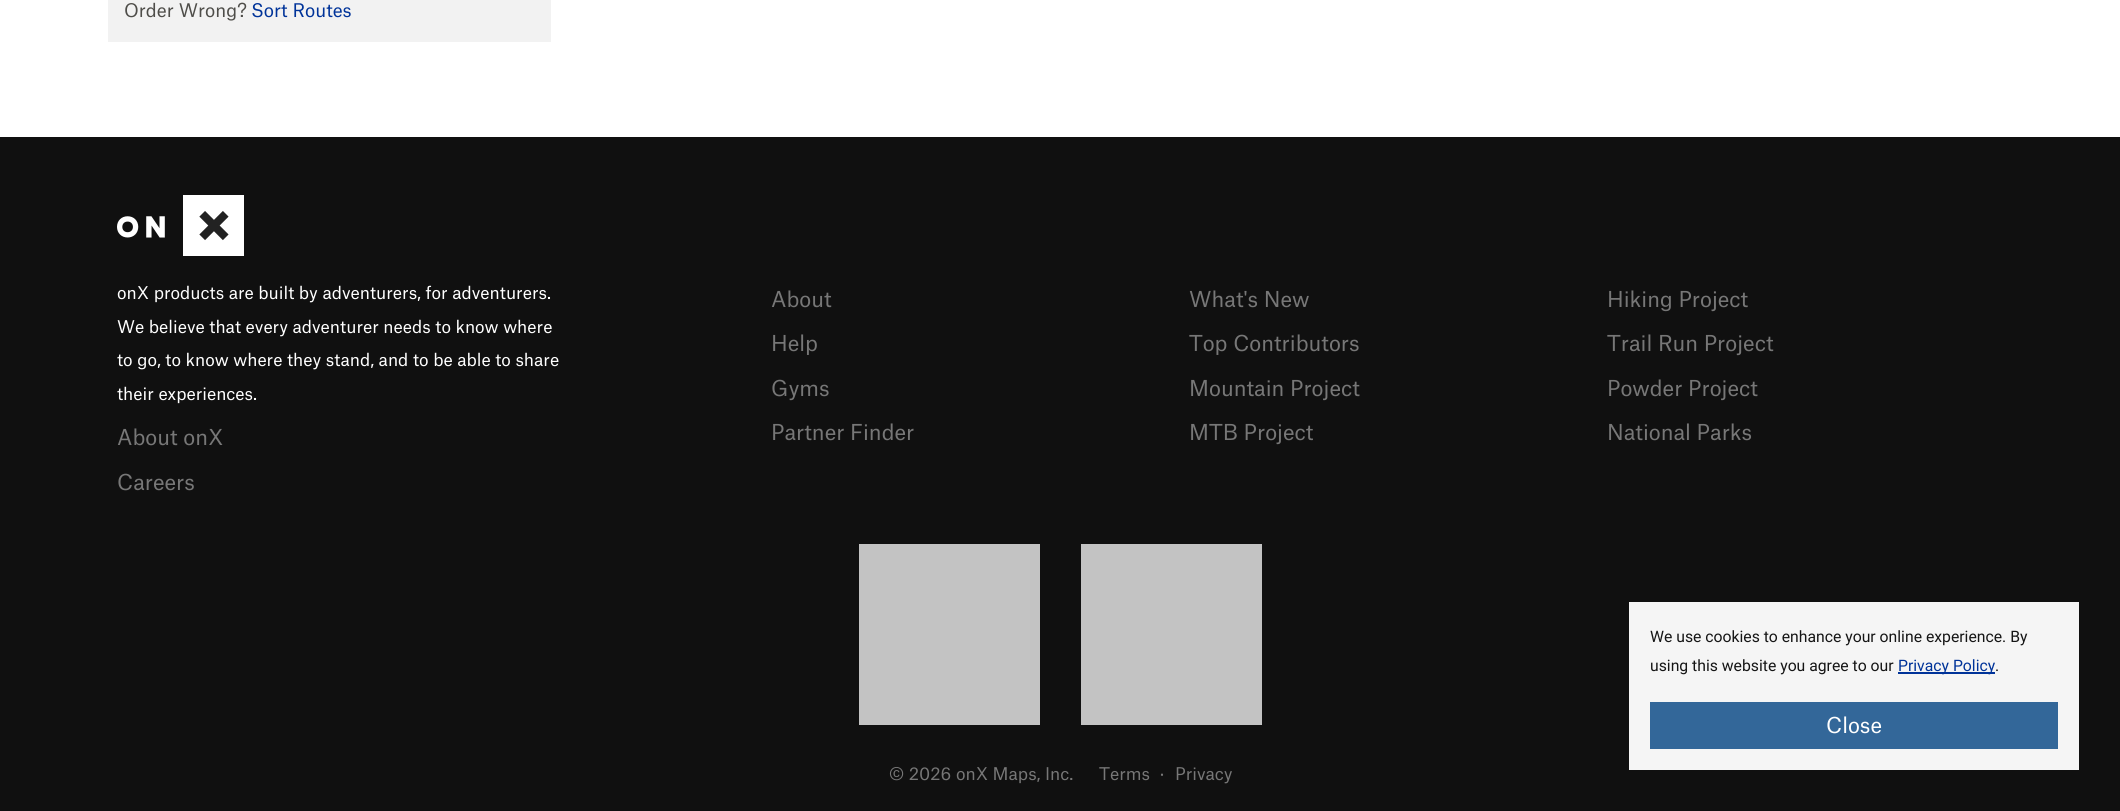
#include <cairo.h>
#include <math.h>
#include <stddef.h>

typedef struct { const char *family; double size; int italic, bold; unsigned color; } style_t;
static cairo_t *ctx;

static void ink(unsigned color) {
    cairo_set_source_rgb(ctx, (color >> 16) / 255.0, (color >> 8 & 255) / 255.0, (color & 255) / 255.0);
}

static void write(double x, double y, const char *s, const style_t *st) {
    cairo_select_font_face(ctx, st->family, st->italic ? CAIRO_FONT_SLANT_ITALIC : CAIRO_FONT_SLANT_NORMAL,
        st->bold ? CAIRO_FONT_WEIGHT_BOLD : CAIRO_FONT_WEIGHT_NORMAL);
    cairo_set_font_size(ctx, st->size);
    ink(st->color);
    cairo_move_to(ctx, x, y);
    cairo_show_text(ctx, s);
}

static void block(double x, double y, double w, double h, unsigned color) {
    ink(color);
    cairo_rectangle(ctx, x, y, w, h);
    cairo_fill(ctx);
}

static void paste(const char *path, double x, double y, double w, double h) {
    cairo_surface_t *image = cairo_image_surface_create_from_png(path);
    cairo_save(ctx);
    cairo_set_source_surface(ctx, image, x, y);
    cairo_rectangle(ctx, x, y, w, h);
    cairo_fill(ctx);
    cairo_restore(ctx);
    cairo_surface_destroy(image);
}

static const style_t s1 = {"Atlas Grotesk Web", 18, 0, 0, 0x4e4d49};
static const style_t s2 = {"Atlas Grotesk Web", 18, 0, 0, 0x003399};
static const style_t s3 = {"Atlas Grotesk Web", 16.8, 0, 0, 0xffffff};
static const style_t s4 = {"Atlas Grotesk Web", 21, 0, 0, 0x777777};
static const style_t s5 = {"Atlas Grotesk Web", 16.8, 0, 0, 0x777777};
static const style_t s6 = {"Roboto", 15.75, 0, 0, 0x151515};
static const style_t s7 = {"Roboto", 15.75, 0, 0, 0x003399};
static const style_t s8 = {"Atlas Grotesk Web", 21, 0, 0, 0xffffff};

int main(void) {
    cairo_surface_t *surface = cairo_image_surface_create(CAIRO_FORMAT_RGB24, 2120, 811);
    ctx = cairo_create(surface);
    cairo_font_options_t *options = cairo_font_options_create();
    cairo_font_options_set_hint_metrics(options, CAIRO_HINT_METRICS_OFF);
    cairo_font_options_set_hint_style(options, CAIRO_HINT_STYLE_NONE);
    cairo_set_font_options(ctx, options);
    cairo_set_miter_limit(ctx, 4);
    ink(0xffffff);
    cairo_paint(ctx);
    block(108, 0, 443, 42, 0xf2f2f2);
    write(124, 17, "Order Wrong?", &s1);
    write(251, 17, "Sort Routes", &s2);
    block(0, 137, 2120, 674, 0x101010);
    paste("pic1.png", 117, 195, 127, 61);
    write(117, 299, "onX products are built by adventurers, for adventurers.", &s3);
    write(117, 333, "We believe that every adventurer needs to know where", &s3);
    write(117, 366, "to go, to know where they stand, and to be able to share", &s3);
    write(117, 400, "their experiences.", &s3);
    write(117, 445, "About onX", &s4);
    write(117, 490, "Careers", &s4);
    write(771, 307, "About", &s4);
    write(1189, 307, "What's New", &s4);
    write(1607, 307, "Hiking Project", &s4);
    write(771, 351, "Help", &s4);
    write(1189, 351, "Top Contributors", &s4);
    write(1607, 351, "Trail Run Project", &s4);
    write(771, 396, "Gyms", &s4);
    write(1189, 396, "Mountain Project", &s4);
    write(1607, 396, "Powder Project", &s4);
    write(771, 440, "Partner Finder", &s4);
    write(1189, 440, "MTB Project", &s4);
    write(1607, 440, "National Parks", &s4);
    block(859, 544, 181, 181, 0xc3c3c3);
    block(1081, 544, 181, 181, 0xc3c3c3);
    write(889, 780, "© 2026 onX Maps, Inc.", &s5);
    write(1099, 780, "Terms", &s5);
    write(1160, 780, "·", &s5);
    write(1175, 780, "Privacy", &s5);
    block(1629, 602, 450, 168, 0xf5f5f5);
    write(1650, 642, "We use cookies to enhance your online experience. By", &s6);
    write(1650, 671, "using this website you agree to our", &s6);
    block(1898, 672, 97, 2, 0x003399);
    write(1898, 671, "Privacy Policy", &s7);
    write(1995, 671, ".", &s6);
    block(1650, 702, 408, 47, 0x336799);
    write(1826, 733, "Close", &s8);
    cairo_surface_write_to_png(surface, "screenshot.png");
    cairo_font_options_destroy(options);
    cairo_destroy(ctx);
    cairo_surface_destroy(surface);
    return 0;
}
